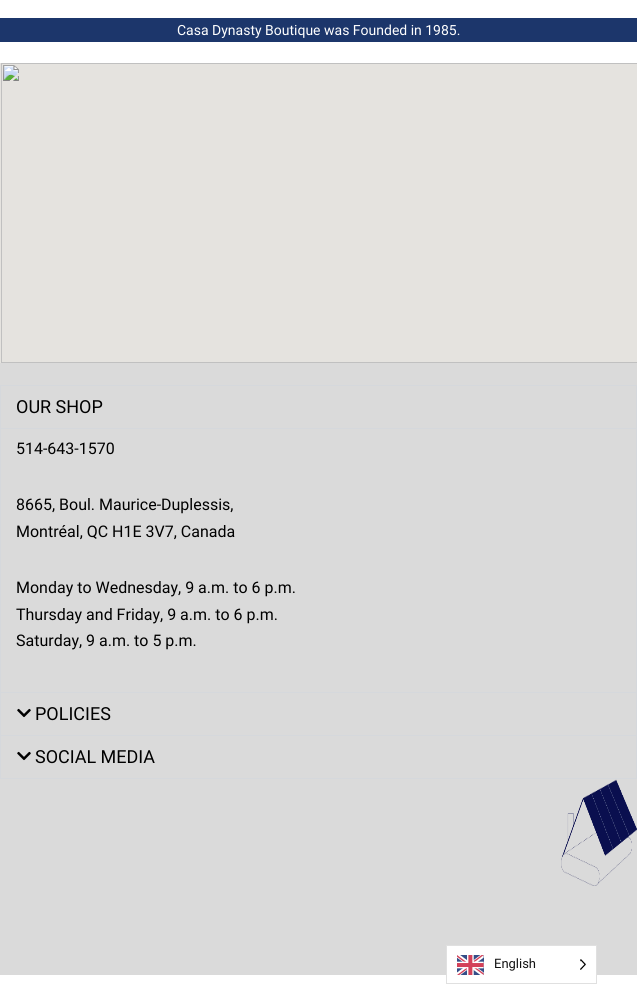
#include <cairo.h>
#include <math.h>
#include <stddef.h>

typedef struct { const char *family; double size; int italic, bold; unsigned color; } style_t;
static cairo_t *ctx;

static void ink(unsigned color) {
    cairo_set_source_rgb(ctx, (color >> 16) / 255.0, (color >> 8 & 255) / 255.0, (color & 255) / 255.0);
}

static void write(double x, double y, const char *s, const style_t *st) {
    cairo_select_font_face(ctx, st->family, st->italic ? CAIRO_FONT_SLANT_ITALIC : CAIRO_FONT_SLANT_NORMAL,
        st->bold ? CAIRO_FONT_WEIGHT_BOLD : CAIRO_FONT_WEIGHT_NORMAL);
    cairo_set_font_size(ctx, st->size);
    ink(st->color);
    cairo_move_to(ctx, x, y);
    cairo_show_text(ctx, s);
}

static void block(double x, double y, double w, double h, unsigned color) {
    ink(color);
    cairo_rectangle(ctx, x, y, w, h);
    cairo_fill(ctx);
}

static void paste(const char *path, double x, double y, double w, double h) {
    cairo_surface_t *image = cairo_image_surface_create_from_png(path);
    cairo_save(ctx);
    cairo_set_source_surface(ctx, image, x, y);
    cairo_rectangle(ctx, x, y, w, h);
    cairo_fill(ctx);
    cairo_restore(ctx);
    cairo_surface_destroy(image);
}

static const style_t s1 = {"Roboto", 14, 0, 0, 0xffffff};
static const style_t s2 = {"Roboto", 18, 0, 0, 0x000000};
static const style_t s3 = {"Roboto", 16, 0, 0, 0x000000};
static const style_t s4 = {"Roboto", 13, 0, 0, 0x111111};

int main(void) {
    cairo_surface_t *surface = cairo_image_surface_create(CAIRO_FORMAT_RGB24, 637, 984);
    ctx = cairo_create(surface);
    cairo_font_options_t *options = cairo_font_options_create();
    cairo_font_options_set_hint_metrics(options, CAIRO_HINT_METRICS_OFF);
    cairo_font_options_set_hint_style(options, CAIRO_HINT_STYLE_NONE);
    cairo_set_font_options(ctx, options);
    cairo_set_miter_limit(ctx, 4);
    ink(0xffffff);
    cairo_paint(ctx);
    block(0, 18, 637, 24, 0x1c366b);
    write(177, 35, "Casa Dynasty Boutique was Founded in 1985.", &s1);
    paste("pic1.png", 0, 63, 637, 300);
    block(0, 363, 637, 612, 0xdadada);
    cairo_rectangle(ctx, 0.5, 385.5, 636, 307);
    ink(0xd5d8dc);
    cairo_set_line_width(ctx, 1);
    cairo_stroke(ctx);
    write(16, 413, "OUR SHOP", &s2);
    block(1, 428, 635, 1, 0xd5d8dc);
    write(16, 454, "514-643-1570", &s3);
    write(16, 510, "8665, Boul. Maurice-Duplessis,", &s3);
    write(16, 537, "Montréal, QC H1E 3V7, Canada", &s3);
    write(16, 593, "Monday to Wednesday, 9 a.m. to 6 p.m.", &s3);
    write(16, 620, "Thursday and Friday, 9 a.m. to 6 p.m.", &s3);
    write(16, 646, "Saturday, 9 a.m. to 5 p.m.", &s3);
    block(636, 693, 1, 86, 0xd5d8dc);
    block(0, 735, 637, 1, 0xd5d8dc);
    block(0, 693, 1, 43, 0xd5d8dc);
    paste("pic2.png", 17, 708, 14, 10);
    write(35, 720, "POLICIES", &s2);
    block(0, 778, 637, 1, 0xd5d8dc);
    block(0, 736, 1, 43, 0xd5d8dc);
    paste("pic2.png", 17, 751, 14, 10);
    write(35, 763, "SOCIAL MEDIA", &s2);
    paste("pic3.png", 561, 779, 76, 107);
    block(447, 946, 149, 29, 0xffffff);
    cairo_rectangle(ctx, 446.5, 945.5, 150, 38);
    ink(0xe0e0e0);
    cairo_stroke(ctx);
    paste("pic4.png", 457, 955, 27, 20);
    write(494, 968, "English", &s4);
    paste("pic5.png", 580, 959, 6, 11);
    cairo_surface_write_to_png(surface, "screenshot.png");
    cairo_font_options_destroy(options);
    cairo_destroy(ctx);
    cairo_surface_destroy(surface);
    return 0;
}
